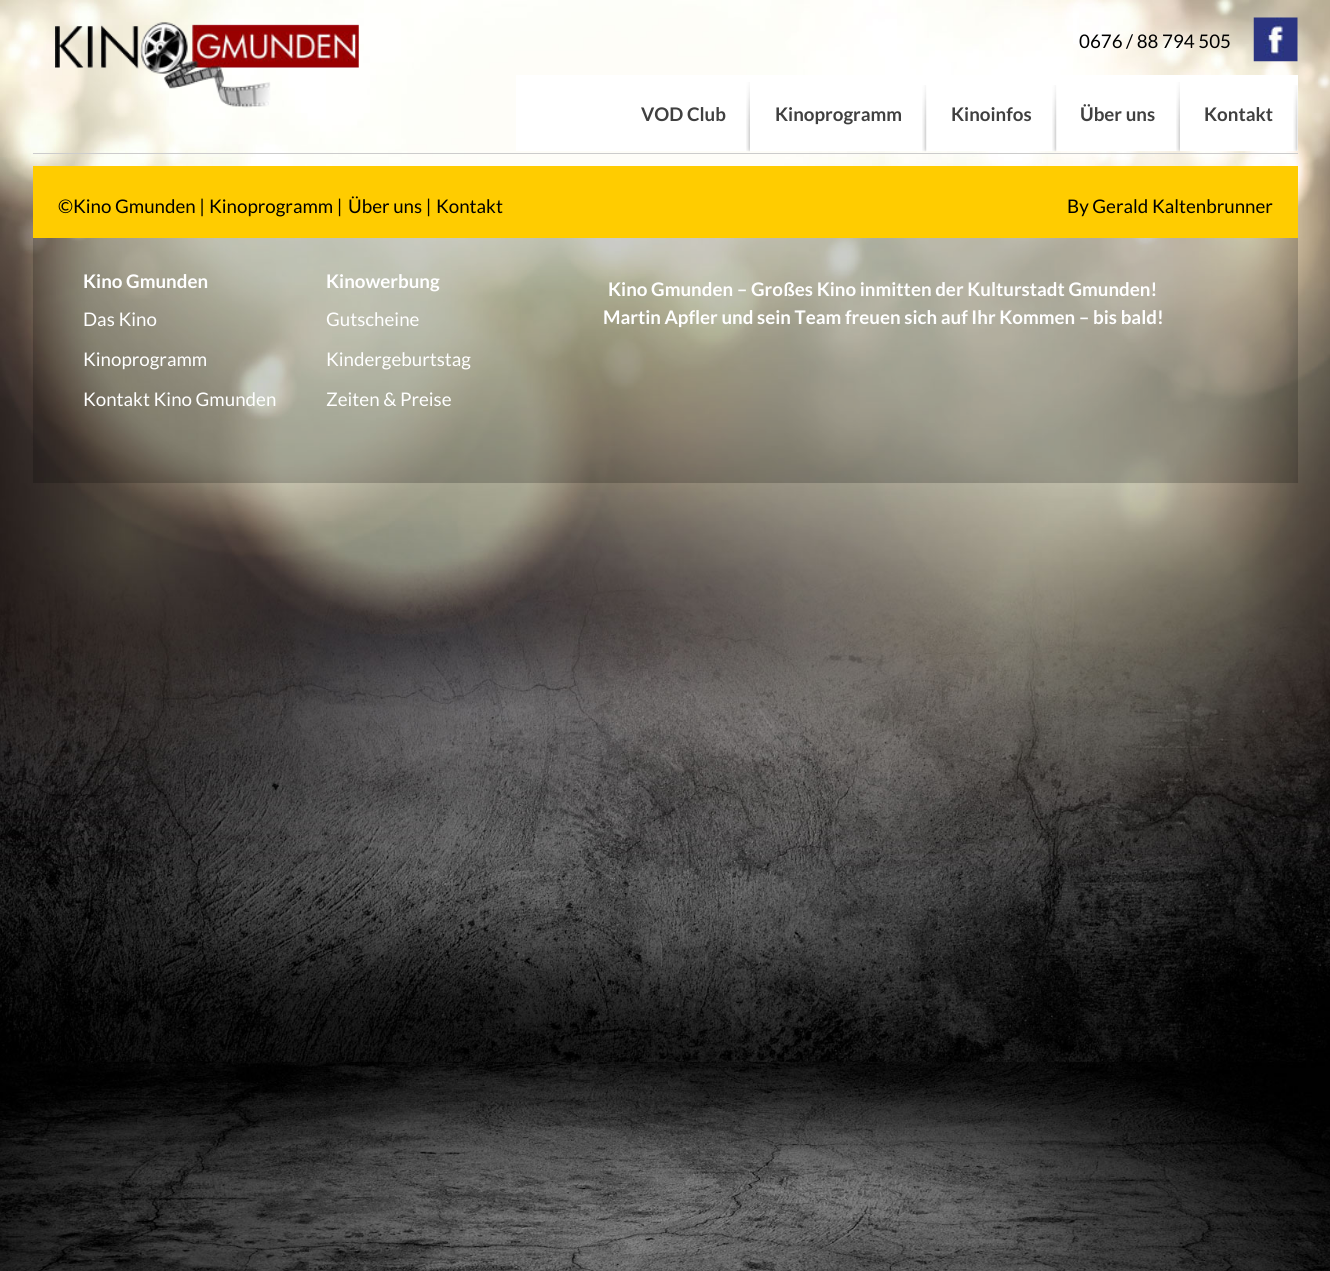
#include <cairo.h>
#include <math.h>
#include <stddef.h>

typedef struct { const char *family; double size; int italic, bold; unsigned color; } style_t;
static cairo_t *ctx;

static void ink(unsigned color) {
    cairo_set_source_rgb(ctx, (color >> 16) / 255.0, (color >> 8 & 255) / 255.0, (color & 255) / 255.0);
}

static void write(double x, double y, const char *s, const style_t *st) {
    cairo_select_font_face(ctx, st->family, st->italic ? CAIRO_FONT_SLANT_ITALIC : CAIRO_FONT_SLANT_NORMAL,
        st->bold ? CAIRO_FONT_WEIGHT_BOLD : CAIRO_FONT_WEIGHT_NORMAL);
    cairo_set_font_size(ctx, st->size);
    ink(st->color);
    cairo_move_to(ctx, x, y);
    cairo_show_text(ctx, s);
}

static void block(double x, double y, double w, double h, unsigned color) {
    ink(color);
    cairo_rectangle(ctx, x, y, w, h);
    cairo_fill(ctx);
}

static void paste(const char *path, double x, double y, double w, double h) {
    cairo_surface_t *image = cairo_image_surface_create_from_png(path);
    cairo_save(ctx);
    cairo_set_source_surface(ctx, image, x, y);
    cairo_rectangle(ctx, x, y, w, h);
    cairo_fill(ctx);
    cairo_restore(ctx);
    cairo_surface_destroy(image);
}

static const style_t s1 = {"Lato", 18.75, 0, 0, 0x000000};
static const style_t s2 = {"Lato", 18.75, 0, 1, 0x404040};
static const style_t s3 = {"Lato", 18.75, 0, 1, 0xffffff};
static const style_t s4 = {"Lato", 18.75, 0, 0, 0xffffff};

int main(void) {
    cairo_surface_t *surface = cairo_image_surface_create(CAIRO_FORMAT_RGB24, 1330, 1271);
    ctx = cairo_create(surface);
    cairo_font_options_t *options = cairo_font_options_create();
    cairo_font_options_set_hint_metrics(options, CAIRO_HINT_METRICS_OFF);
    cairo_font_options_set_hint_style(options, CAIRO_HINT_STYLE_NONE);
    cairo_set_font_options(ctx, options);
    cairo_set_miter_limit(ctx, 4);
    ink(0xffffff);
    cairo_paint(ctx);
    paste("pic1.png", 0, 0, 1330, 1271);
    paste("pic2.png", 55, 22, 304, 86);
    write(1079, 48, "0676 / 88 794 505", &s1);
    paste("pic3.png", 1253, 17, 45, 45);
    block(516, 75, 782, 76, 0xffffff);
    paste("pic4.png", 746, 82, 4, 70);
    write(641, 121, "VOD Club", &s2);
    paste("pic5.png", 922, 85, 5, 67);
    write(775, 121, "Kinoprogramm", &s2);
    paste("pic6.png", 1052, 85, 5, 67);
    write(951, 121, "Kinoinfos", &s2);
    paste("pic7.png", 1176, 82, 4, 70);
    write(1080, 121, "Über uns", &s2);
    paste("pic8.png", 1293, 85, 5, 66);
    write(1204, 121, "Kontakt", &s2);
    block(33, 153, 1265, 1, 0xcccccc);
    cairo_set_source_rgba(ctx, 0, 0, 0, 0.2);
    cairo_rectangle(ctx, 33, 238, 1265, 245);
    cairo_fill(ctx);
    block(33, 166, 1265, 72, 0xffcc00);
    write(58, 213, "©Kino Gmunden |", &s1);
    write(209, 213, "Kinoprogramm |", &s1);
    write(348, 213, "Über uns |", &s1);
    write(436, 213, "Kontakt", &s1);
    write(1067, 213, "By Gerald Kaltenbrunner", &s1);
    write(83, 288, "Kino Gmunden", &s3);
    write(83, 326, "Das Kino", &s4);
    write(83, 366, "Kinoprogramm", &s4);
    write(83, 406, "Kontakt Kino Gmunden", &s4);
    write(326, 288, "Kinowerbung", &s3);
    write(326, 326, "Gutscheine", &s4);
    write(326, 366, "Kindergeburtstag", &s4);
    write(326, 406, "Zeiten & Preise", &s4);
    write(608, 296, "Kino Gmunden – Großes Kino inmitten der Kulturstadt Gmunden!", &s3);
    write(603, 324, "Martin Apfler und sein Team freuen sich auf Ihr Kommen – bis bald!", &s3);
    cairo_surface_write_to_png(surface, "screenshot.png");
    cairo_font_options_destroy(options);
    cairo_destroy(ctx);
    cairo_surface_destroy(surface);
    return 0;
}
